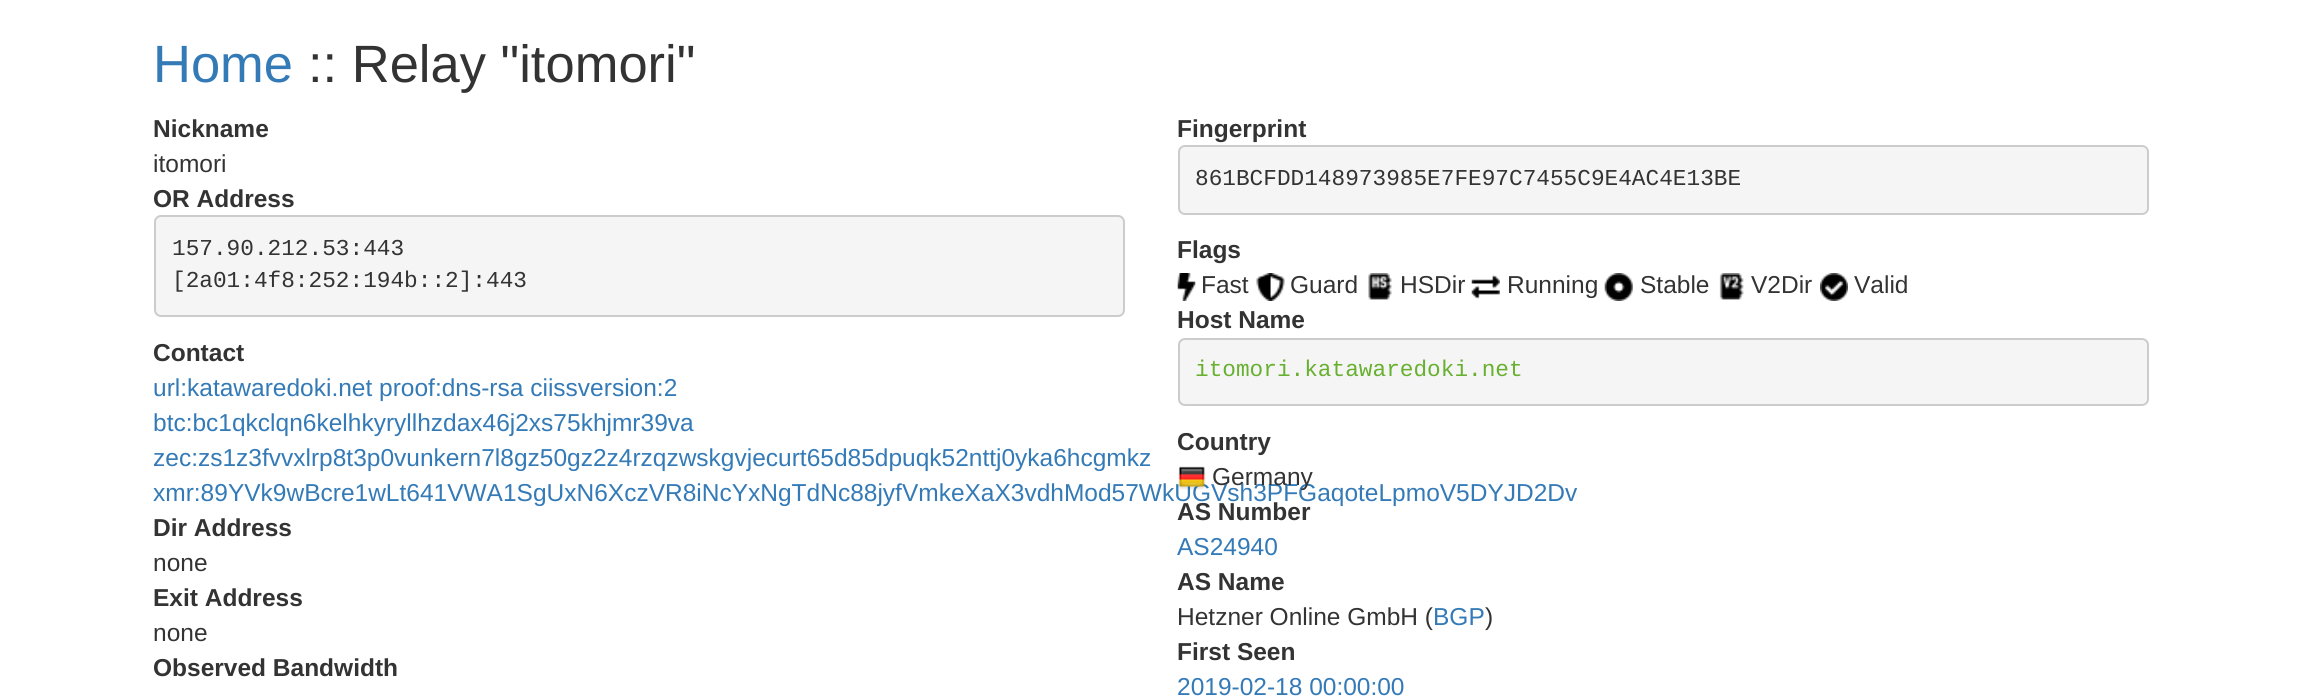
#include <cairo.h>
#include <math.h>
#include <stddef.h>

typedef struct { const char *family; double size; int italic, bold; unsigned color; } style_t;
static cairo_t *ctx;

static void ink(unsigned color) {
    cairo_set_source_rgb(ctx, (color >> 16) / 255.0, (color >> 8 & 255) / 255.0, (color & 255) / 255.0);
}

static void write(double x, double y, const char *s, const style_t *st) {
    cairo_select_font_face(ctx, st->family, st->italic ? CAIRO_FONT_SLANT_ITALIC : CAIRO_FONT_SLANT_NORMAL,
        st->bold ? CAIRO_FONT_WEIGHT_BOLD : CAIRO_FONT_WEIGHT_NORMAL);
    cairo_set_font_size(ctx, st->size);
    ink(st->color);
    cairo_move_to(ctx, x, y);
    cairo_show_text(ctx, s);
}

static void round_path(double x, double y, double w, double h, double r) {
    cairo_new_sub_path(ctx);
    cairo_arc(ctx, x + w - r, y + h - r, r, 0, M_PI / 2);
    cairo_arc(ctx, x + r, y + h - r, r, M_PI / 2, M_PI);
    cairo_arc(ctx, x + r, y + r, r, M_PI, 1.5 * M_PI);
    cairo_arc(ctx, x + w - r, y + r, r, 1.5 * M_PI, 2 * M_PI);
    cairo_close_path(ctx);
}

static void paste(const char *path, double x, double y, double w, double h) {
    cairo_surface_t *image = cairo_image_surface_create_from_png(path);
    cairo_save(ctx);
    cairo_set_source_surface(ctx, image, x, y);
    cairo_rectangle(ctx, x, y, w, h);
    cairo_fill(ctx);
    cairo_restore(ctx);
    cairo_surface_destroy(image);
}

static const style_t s1 = {"Liberation Sans", 52.5, 0, 0, 0x337ab7};
static const style_t s2 = {"Liberation Sans", 52.5, 0, 0, 0x333333};
static const style_t s3 = {"Liberation Sans", 24.5, 0, 1, 0x333333};
static const style_t s4 = {"Liberation Sans", 24.5, 0, 0, 0x333333};
static const style_t s5 = {"Liberation Mono", 22.75, 0, 0, 0x333333};
static const style_t s6 = {"Liberation Sans", 24.5, 0, 0, 0x337ab7};
static const style_t s7 = {"Liberation Mono", 22.75, 0, 0, 0x68b030};

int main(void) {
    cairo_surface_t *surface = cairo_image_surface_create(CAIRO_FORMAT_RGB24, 2301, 697);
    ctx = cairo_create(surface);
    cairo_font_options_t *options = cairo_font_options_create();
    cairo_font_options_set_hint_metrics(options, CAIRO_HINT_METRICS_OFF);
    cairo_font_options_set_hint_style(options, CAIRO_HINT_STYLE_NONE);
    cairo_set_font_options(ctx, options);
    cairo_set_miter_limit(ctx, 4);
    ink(0xffffff);
    cairo_paint(ctx);
    write(153, 82, "Home", &s1);
    write(308, 82, ":: Relay \"itomori\"", &s2);
    write(153, 137, "Nickname", &s3);
    write(153, 172, "itomori", &s4);
    write(153, 207, "OR Address", &s3);
    ink(0xf5f5f5);
    round_path(155, 216, 969, 100, 6);
    cairo_fill_preserve(ctx);
    ink(0xcccccc);
    cairo_stroke(ctx);
    write(172, 255, "157.90.212.53:443", &s5);
    write(172, 287, "[2a01:4f8:252:194b::2]:443", &s5);
    write(153, 361, "Contact", &s3);
    write(153, 396, "url:katawaredoki.net proof:dns-rsa ciissversion:2", &s6);
    write(153, 431, "btc:bc1qkclqn6kelhkyryllhzdax46j2xs75khjmr39va", &s6);
    write(153, 466, "zec:zs1z3fvvxlrp8t3p0vunkern7l8gz50gz2z4rzqzwskgvjecurt65d85dpuqk52nttj0yka6hcgmkz", &s6);
    write(153, 501, "xmr:89YVk9wBcre1wLt641VWA1SgUxN6XczVR8iNcYxNgTdNc88jyfVmkeXaX3vdhMod57WkUGVsh3PFGaqoteLpmoV5DYJD2Dv", &s6);
    write(153, 536, "Dir Address", &s3);
    write(153, 571, "none", &s4);
    write(153, 606, "Exit Address", &s3);
    write(153, 641, "none", &s4);
    write(153, 676, "Observed Bandwidth", &s3);
    write(1177, 137, "Fingerprint", &s3);
    ink(0xf5f5f5);
    round_path(1179, 146, 969, 68, 6);
    cairo_fill_preserve(ctx);
    ink(0xcccccc);
    cairo_stroke(ctx);
    write(1195, 185, "861BCFDD148973985E7FE97C7455C9E4AC4E13BE", &s5);
    write(1177, 258, "Flags", &s3);
    paste("pic1.png", 1177, 273, 19, 28);
    write(1201, 293, "Fast", &s4);
    paste("pic2.png", 1256, 273, 29, 28);
    write(1290, 293, "Guard", &s4);
    paste("pic3.png", 1368, 273, 24, 27);
    write(1400, 293, "HSDir", &s4);
    paste("pic4.png", 1471, 274, 29, 26);
    write(1507, 293, "Running", &s4);
    paste("pic5.png", 1604, 273, 29, 28);
    write(1640, 293, "Stable", &s4);
    paste("pic6.png", 1719, 273, 25, 27);
    write(1751, 293, "V2Dir", &s4);
    paste("pic7.png", 1820, 273, 28, 28);
    write(1854, 293, "Valid", &s4);
    write(1177, 328, "Host Name", &s3);
    ink(0xf5f5f5);
    round_path(1179, 339, 969, 66, 6);
    cairo_fill_preserve(ctx);
    ink(0xcccccc);
    cairo_stroke(ctx);
    write(1195, 376, "itomori.katawaredoki.net", &s7);
    write(1177, 450, "Country", &s3);
    paste("pic8.png", 1178, 466, 28, 24);
    write(1212, 485, "Germany", &s4);
    write(1177, 520, "AS Number", &s3);
    write(1177, 555, "AS24940", &s6);
    write(1177, 590, "AS Name", &s3);
    write(1177, 625, "Hetzner Online GmbH (", &s4);
    write(1433, 625, "BGP", &s6);
    write(1485, 625, ")", &s4);
    write(1177, 660, "First Seen", &s3);
    write(1177, 695, "2019-02-18 00:00:00", &s6);
    cairo_surface_write_to_png(surface, "screenshot.png");
    cairo_font_options_destroy(options);
    cairo_destroy(ctx);
    cairo_surface_destroy(surface);
    return 0;
}
